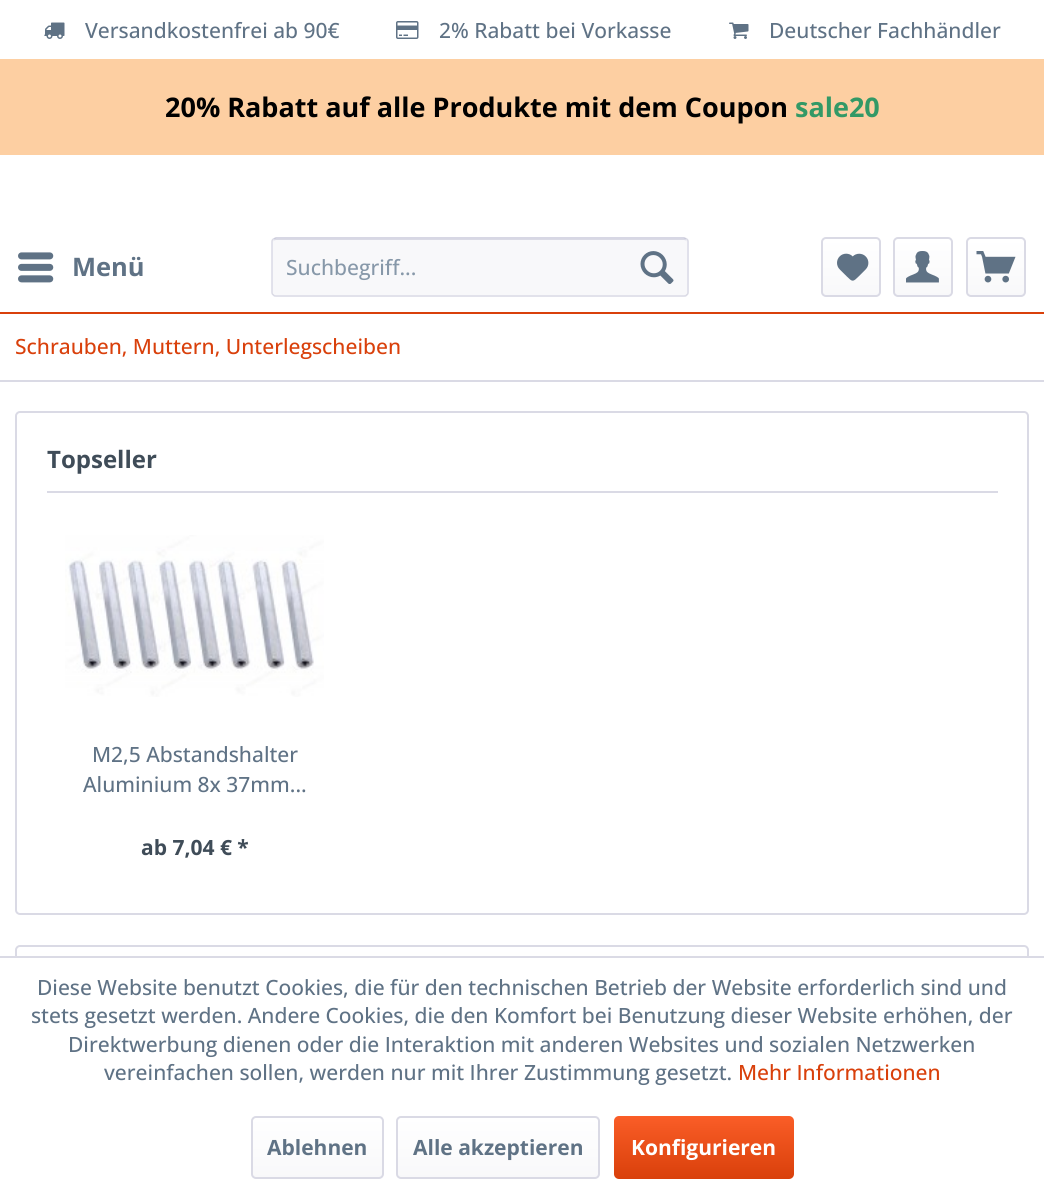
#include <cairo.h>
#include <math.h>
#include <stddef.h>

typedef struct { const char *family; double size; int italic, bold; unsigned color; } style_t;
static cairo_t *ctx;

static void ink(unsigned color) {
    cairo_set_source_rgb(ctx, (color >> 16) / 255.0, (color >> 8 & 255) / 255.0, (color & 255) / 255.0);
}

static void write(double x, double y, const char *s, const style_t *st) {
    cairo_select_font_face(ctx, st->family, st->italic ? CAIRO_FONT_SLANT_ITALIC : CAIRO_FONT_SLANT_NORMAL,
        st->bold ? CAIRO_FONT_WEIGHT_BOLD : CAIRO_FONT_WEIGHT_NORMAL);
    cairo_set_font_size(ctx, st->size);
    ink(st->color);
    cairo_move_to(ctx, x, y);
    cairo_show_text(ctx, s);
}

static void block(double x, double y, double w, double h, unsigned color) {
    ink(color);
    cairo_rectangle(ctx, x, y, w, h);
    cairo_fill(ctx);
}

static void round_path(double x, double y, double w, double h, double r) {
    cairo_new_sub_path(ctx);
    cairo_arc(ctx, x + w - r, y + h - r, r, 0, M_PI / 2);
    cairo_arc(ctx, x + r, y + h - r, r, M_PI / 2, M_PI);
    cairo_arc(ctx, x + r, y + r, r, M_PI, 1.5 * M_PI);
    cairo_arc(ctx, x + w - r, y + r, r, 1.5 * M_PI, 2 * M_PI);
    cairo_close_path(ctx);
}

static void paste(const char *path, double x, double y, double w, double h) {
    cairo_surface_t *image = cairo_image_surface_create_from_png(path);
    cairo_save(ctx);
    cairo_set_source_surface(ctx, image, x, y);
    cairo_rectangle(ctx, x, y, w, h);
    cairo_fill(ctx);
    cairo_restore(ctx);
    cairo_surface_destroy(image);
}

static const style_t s1 = {"Open Sans Medium", 21, 0, 0, 0x5f7285};
static const style_t s2 = {"Open Sans", 27, 0, 1, 0x000000};
static const style_t s3 = {"Open Sans", 27, 0, 1, 0x339966};
static const style_t s4 = {"Open Sans", 25.5, 0, 1, 0x5f7285};
static const style_t s5 = {"Open Sans Medium", 21, 0, 0, 0x8798a9};
static const style_t s6 = {"Open Sans Medium", 21, 0, 0, 0xd9400b};
static const style_t s7 = {"Open Sans", 24, 0, 1, 0x3f4c58};
static const style_t s8 = {"Open Sans", 21, 0, 1, 0x3f4c58};
static const style_t s9 = {"Open Sans", 21, 0, 1, 0x5f7285};
static const style_t s10 = {"Open Sans", 21, 0, 1, 0xffffff};

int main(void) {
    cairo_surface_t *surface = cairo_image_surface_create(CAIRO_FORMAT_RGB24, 1044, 1194);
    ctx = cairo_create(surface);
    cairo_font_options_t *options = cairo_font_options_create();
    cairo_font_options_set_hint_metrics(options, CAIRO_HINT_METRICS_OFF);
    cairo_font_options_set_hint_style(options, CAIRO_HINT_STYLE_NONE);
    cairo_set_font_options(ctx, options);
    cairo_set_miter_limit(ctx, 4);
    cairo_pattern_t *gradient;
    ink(0xffffff);
    cairo_paint(ctx);
    paste("pic1.png", 44, 22, 21, 17);
    write(85, 38, "Versandkostenfrei ab 90€", &s1);
    paste("pic2.png", 396, 21, 23, 18);
    write(439, 38, "2% Rabatt bei Vorkasse", &s1);
    paste("pic3.png", 729, 22, 20, 17);
    write(769, 38, "Deutscher Fachhändler", &s1);
    block(0, 59, 1044, 96, 0xfdcfa2);
    write(165, 117, "20% Rabatt auf alle Produkte mit dem Coupon", &s2);
    write(795, 117, "sale20", &s3);
    block(0, 312, 1044, 2, 0xd9400b);
    paste("pic4.png", 18, 252, 36, 31);
    write(72, 276, "Menü", &s4);
    ink(0xf8f8fa);
    round_path(272, 237, 417, 60, 5);
    cairo_fill(ctx);
    ink(0xdadae5);
    cairo_new_path(ctx);
    cairo_move_to(ctx, 276, 240);
    cairo_line_to(ctx, 684, 240);
    cairo_curve_to(ctx, 686, 240, 687, 241, 687, 243);
    cairo_curve_to(ctx, 687, 241, 686, 239, 684, 239);
    cairo_line_to(ctx, 276, 239);
    cairo_curve_to(ctx, 274, 239, 273, 241, 273, 243);
    cairo_curve_to(ctx, 273, 241, 274, 240, 276, 240);
    cairo_close_path(ctx);
    cairo_fill(ctx);
    cairo_new_path(ctx);
    cairo_move_to(ctx, 273.5, 239);
    cairo_line_to(ctx, 276, 238);
    cairo_line_to(ctx, 684, 238);
    cairo_line_to(ctx, 686.5, 239);
    ink(0xcbcbdb);
    cairo_set_line_width(ctx, 1.5);
    cairo_stroke(ctx);
    cairo_new_path(ctx);
    cairo_move_to(ctx, 686.5, 239);
    cairo_curve_to(ctx, 687.5, 239.5, 688, 240.5, 688, 241.5);
    cairo_line_to(ctx, 688, 292.5);
    cairo_curve_to(ctx, 688, 293.5, 687.5, 294.5, 686.5, 295);
    cairo_curve_to(ctx, 686, 296, 685, 296, 684, 296);
    cairo_line_to(ctx, 276, 296);
    cairo_curve_to(ctx, 275, 296, 274, 296, 273.5, 295);
    cairo_curve_to(ctx, 272.5, 294.5, 272, 293.5, 272, 292.5);
    cairo_line_to(ctx, 272, 241.5);
    cairo_curve_to(ctx, 272, 240.5, 272.5, 239.5, 273.5, 239);
    ink(0xdadae5);
    cairo_stroke(ctx);
    write(286, 275, "Suchbegriff...", &s5);
    paste("pic5.png", 640, 251, 34, 33);
    gradient = cairo_pattern_create_linear(851, 239, 851, 296);
    cairo_pattern_add_color_stop_rgba(gradient, 0, 1, 1, 1, 1);
    cairo_pattern_add_color_stop_rgba(gradient, 1, 0.973, 0.973, 0.98, 1);
    cairo_set_source(ctx, gradient);
    cairo_pattern_destroy(gradient);
    round_path(822, 239, 57, 57, 3);
    cairo_fill(ctx);
    round_path(822, 238, 58, 58, 4);
    ink(0xdadae5);
    cairo_set_line_width(ctx, 2);
    cairo_stroke(ctx);
    paste("pic6.png", 837, 253, 32, 28);
    gradient = cairo_pattern_create_linear(923, 239, 923, 296);
    cairo_pattern_add_color_stop_rgba(gradient, 0, 1, 1, 1, 1);
    cairo_pattern_add_color_stop_rgba(gradient, 1, 0.973, 0.973, 0.98, 1);
    cairo_set_source(ctx, gradient);
    cairo_pattern_destroy(gradient);
    round_path(894, 239, 57, 57, 3);
    cairo_fill(ctx);
    round_path(894, 238, 58, 58, 4);
    ink(0xdadae5);
    cairo_stroke(ctx);
    paste("pic7.png", 906, 251, 33, 32);
    gradient = cairo_pattern_create_linear(996, 239, 996, 296);
    cairo_pattern_add_color_stop_rgba(gradient, 0, 1, 1, 1, 1);
    cairo_pattern_add_color_stop_rgba(gradient, 1, 0.973, 0.973, 0.98, 1);
    cairo_set_source(ctx, gradient);
    cairo_pattern_destroy(gradient);
    round_path(968, 239, 57, 57, 3);
    cairo_fill(ctx);
    round_path(967, 238, 58, 58, 4);
    ink(0xdadae5);
    cairo_stroke(ctx);
    paste("pic8.png", 976, 251, 40, 32);
    block(0, 380, 1044, 2, 0xdadae5);
    write(15, 354, "Schrauben, Muttern, Unterlegscheiben", &s6);
    round_path(16, 412, 1012, 502, 4);
    ink(0xdadae5);
    cairo_stroke(ctx);
    block(47, 491, 951, 2, 0xdadae5);
    write(47, 468, "Topseller", &s7);
    paste("pic9.png", 65, 535, 259, 162);
    write(92, 762, "M2,5 Abstandshalter", &s1);
    write(83, 792, "Aluminium 8x 37mm...", &s1);
    write(141, 855, "ab 7,04 € *", &s8);
    gradient = cairo_pattern_create_linear(522, 947, 522, 995);
    cairo_pattern_add_color_stop_rgba(gradient, 0, 1, 1, 1, 1);
    cairo_pattern_add_color_stop_rgba(gradient, 1, 0.973, 0.973, 0.98, 1);
    cairo_set_source(ctx, gradient);
    cairo_pattern_destroy(gradient);
    round_path(17, 947, 1011, 48, 3);
    cairo_fill(ctx);
    round_path(16, 946, 1012, 49, 4);
    ink(0xdadae5);
    cairo_stroke(ctx);
    block(15, 958, 1014, 38, 0xffffff);
    block(0, 956, 1044, 2, 0xdadae5);
    write(37, 995, "Diese Website benutzt Cookies, die für den technischen Betrieb der Website erforderlich sind und", &s1);
    write(31, 1023, "stets gesetzt werden. Andere Cookies, die den Komfort bei Benutzung dieser Website erhöhen, der", &s1);
    write(68, 1052, "Direktwerbung dienen oder die Interaktion mit anderen Websites und sozialen Netzwerken", &s1);
    write(104, 1080, "vereinfachen sollen, werden nur mit Ihrer Zustimmung gesetzt.", &s1);
    write(738, 1080, "Mehr Informationen", &s6);
    gradient = cairo_pattern_create_linear(317, 1118, 317, 1178);
    cairo_pattern_add_color_stop_rgba(gradient, 0, 1, 1, 1, 1);
    cairo_pattern_add_color_stop_rgba(gradient, 1, 0.973, 0.973, 0.98, 1);
    cairo_set_source(ctx, gradient);
    cairo_pattern_destroy(gradient);
    round_path(252, 1118, 131, 60, 3);
    cairo_fill(ctx);
    round_path(252, 1117, 131, 61, 4);
    ink(0xdadae5);
    cairo_stroke(ctx);
    write(267, 1155, "Ablehnen", &s9);
    gradient = cairo_pattern_create_linear(498, 1118, 498, 1178);
    cairo_pattern_add_color_stop_rgba(gradient, 0, 1, 1, 1, 1);
    cairo_pattern_add_color_stop_rgba(gradient, 1, 0.973, 0.973, 0.98, 1);
    cairo_set_source(ctx, gradient);
    cairo_pattern_destroy(gradient);
    round_path(398, 1118, 201, 60, 3);
    cairo_fill(ctx);
    round_path(397, 1117, 202, 61, 4);
    ink(0xdadae5);
    cairo_stroke(ctx);
    write(413, 1155, "Alle akzeptieren", &s9);
    gradient = cairo_pattern_create_linear(704, 1116, 704, 1179);
    cairo_pattern_add_color_stop_rgba(gradient, 0, 0.98, 0.365, 0.153, 1);
    cairo_pattern_add_color_stop_rgba(gradient, 1, 0.851, 0.251, 0.043, 1);
    cairo_set_source(ctx, gradient);
    cairo_pattern_destroy(gradient);
    round_path(614, 1116, 180, 63, 5);
    cairo_fill(ctx);
    write(631, 1155, "Konfigurieren", &s10);
    cairo_surface_write_to_png(surface, "screenshot.png");
    cairo_font_options_destroy(options);
    cairo_destroy(ctx);
    cairo_surface_destroy(surface);
    return 0;
}
